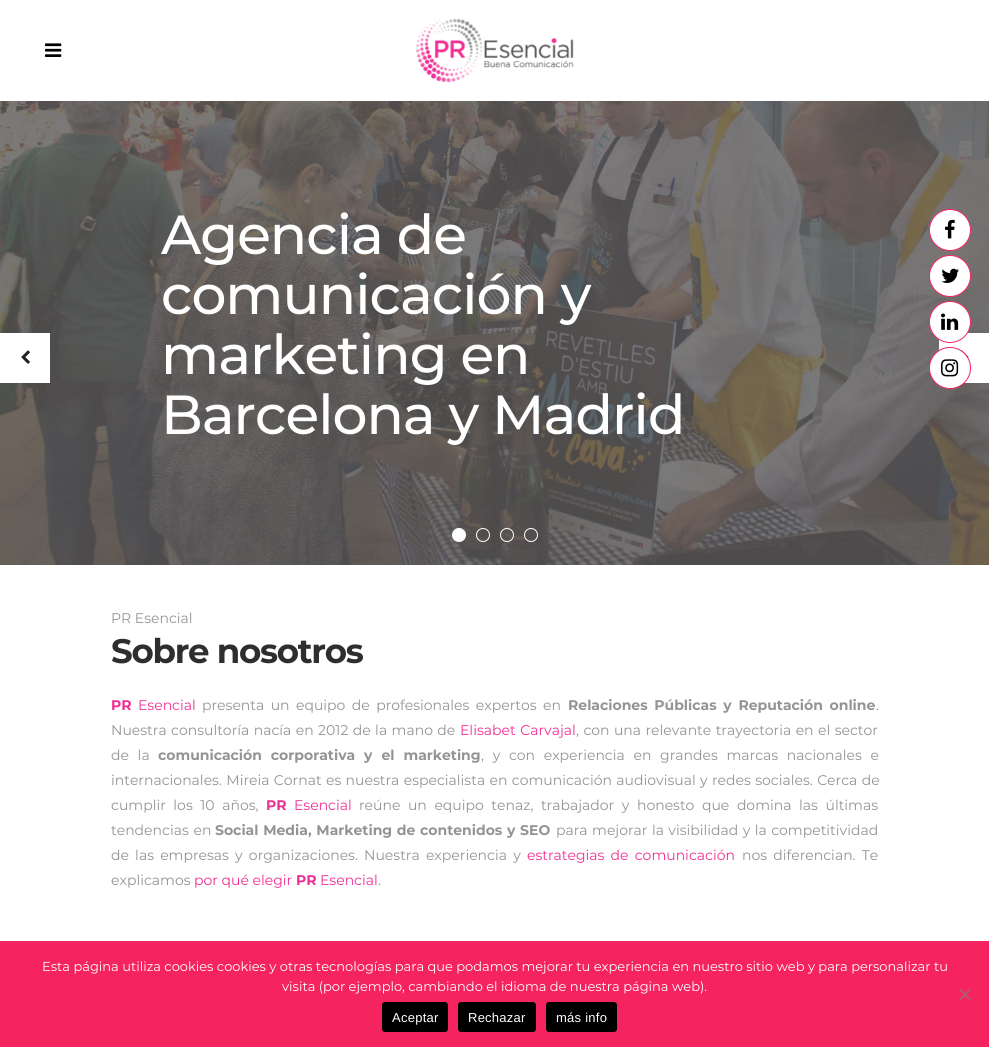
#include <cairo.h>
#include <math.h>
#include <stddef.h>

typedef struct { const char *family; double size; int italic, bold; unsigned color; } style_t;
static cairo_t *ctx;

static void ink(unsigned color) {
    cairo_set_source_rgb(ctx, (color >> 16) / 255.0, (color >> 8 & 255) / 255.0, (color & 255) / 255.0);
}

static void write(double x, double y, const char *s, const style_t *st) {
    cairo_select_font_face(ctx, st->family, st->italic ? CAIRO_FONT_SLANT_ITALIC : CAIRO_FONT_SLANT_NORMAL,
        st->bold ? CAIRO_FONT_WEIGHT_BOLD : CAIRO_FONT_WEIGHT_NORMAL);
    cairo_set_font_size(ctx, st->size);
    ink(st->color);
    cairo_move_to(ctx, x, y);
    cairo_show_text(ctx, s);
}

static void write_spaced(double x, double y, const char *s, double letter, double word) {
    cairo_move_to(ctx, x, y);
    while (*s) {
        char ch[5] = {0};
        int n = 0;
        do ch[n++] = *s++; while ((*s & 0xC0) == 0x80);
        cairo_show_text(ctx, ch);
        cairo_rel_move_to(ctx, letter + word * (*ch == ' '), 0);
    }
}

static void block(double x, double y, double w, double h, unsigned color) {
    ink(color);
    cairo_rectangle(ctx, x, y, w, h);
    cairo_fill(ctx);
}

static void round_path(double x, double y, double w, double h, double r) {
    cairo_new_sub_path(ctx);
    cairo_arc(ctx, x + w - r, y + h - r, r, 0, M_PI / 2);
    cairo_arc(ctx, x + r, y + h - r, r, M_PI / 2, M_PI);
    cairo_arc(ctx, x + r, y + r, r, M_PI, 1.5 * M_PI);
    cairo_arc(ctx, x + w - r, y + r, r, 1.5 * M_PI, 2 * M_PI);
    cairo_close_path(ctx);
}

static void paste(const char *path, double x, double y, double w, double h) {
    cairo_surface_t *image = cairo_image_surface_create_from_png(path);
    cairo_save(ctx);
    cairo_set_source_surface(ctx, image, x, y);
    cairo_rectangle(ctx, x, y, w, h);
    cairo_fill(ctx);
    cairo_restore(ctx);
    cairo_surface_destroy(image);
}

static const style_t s1 = {"Montserrat", 14, 0, 0, 0x949494};
static const style_t s2 = {"Montserrat", 14, 0, 1, 0xf02f95};
static const style_t s3 = {"Montserrat", 14, 0, 0, 0xf02f95};
static const style_t s4 = {"Montserrat", 13, 0, 0, 0xffffff};

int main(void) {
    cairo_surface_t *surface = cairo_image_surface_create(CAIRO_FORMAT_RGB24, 989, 1047);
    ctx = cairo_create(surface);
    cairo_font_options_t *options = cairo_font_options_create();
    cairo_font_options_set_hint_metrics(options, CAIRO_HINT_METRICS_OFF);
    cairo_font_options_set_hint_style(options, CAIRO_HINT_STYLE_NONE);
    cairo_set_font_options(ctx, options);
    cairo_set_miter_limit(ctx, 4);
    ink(0xffffff);
    cairo_paint(ctx);
    paste("pic1.png", 45, 43, 17, 14);
    paste("pic2.png", 415, 18, 159, 65);
    paste("pic3.png", 0, 101, 989, 464);
    cairo_select_font_face(ctx, "Montserrat Medium", CAIRO_FONT_SLANT_NORMAL, CAIRO_FONT_WEIGHT_NORMAL);
    cairo_set_font_size(ctx, 55);
    ink(0xffffff);
    write_spaced(161, 254, "Agencia de", -1, 0);
    write_spaced(161, 314, "comunicación y", -1, 0);
    write_spaced(161, 374, "marketing en", -1, 0);
    write_spaced(161, 434, "Barcelona y Madrid", -1, 0);
    block(0, 333, 50, 50, 0xffffff);
    paste("pic4.png", 21, 350, 9, 14);
    block(939, 333, 50, 50, 0xffffff);
    paste("pic5.png", 961, 350, 8, 8);
    cairo_arc(ctx, 459, 535, 6.5, 0, 2 * M_PI);
    cairo_fill_preserve(ctx);
    cairo_set_line_width(ctx, 1);
    cairo_stroke(ctx);
    cairo_arc(ctx, 483, 535, 6.5, 0, 2 * M_PI);
    cairo_stroke(ctx);
    cairo_arc(ctx, 507, 535, 6.5, 0, 2 * M_PI);
    cairo_stroke(ctx);
    cairo_arc(ctx, 531, 535, 6.5, 0, 2 * M_PI);
    cairo_stroke(ctx);
    write(111, 623, "PR Esencial", &s1);
    cairo_select_font_face(ctx, "Montserrat", CAIRO_FONT_SLANT_NORMAL, CAIRO_FONT_WEIGHT_BOLD);
    cairo_set_font_size(ctx, 34);
    ink(0x2e2e2e);
    write_spaced(111, 663, "Sobre nosotros", -1.25, 0);
    write(111, 710, "PR", &s2);
    write(138, 710, "Esencial", &s3);
    ink(0x949494);
    write_spaced(202, 710, "presenta un equipo de profesionales expertos en", 0, 2.75);
    cairo_select_font_face(ctx, "Montserrat", CAIRO_FONT_SLANT_NORMAL, CAIRO_FONT_WEIGHT_BOLD);
    write_spaced(568, 710, "Relaciones Públicas y Reputación online", 0, 2.75);
    write(876, 710, ".", &s1);
    write_spaced(111, 735, "Nuestra consultoría nacía en 2012 de la mano de", 0, 0.75);
    ink(0xf02f95);
    write_spaced(460, 735, "Elisabet Carvajal", 0, 1);
    ink(0x949494);
    write_spaced(576, 735, ", con una relevante trayectoria en el sector", 0, 0.75);
    write_spaced(111, 760, "de la", 0, 5);
    cairo_select_font_face(ctx, "Montserrat", CAIRO_FONT_SLANT_NORMAL, CAIRO_FONT_WEIGHT_BOLD);
    write_spaced(158, 760, "comunicación corporativa y el marketing", 0, 5);
    cairo_select_font_face(ctx, "Montserrat", CAIRO_FONT_SLANT_NORMAL, CAIRO_FONT_WEIGHT_NORMAL);
    write_spaced(481, 760, ", y con experiencia en grandes marcas nacionales e", 0, 5);
    write_spaced(111, 785, "internacionales. Mireia Cornat es nuestra especialista en comunicación audiovisual y redes sociales. Cerca de", 0, 0.7);
    write_spaced(111, 810, "cumplir los 10 años,", 0, 3.9);
    write(266, 810, "PR", &s2);
    write(294, 810, "Esencial", &s3);
    ink(0x949494);
    write_spaced(359, 810, "reúne un equipo tenaz, trabajador y honesto que domina las últimas", 0, 3.9);
    write_spaced(111, 835, "tendencias en", 0, 1);
    cairo_select_font_face(ctx, "Montserrat", CAIRO_FONT_SLANT_NORMAL, CAIRO_FONT_WEIGHT_BOLD);
    write_spaced(215, 835, "Social Media, Marketing de contenidos y SEO", 0, 0.75);
    cairo_select_font_face(ctx, "Montserrat", CAIRO_FONT_SLANT_NORMAL, CAIRO_FONT_WEIGHT_NORMAL);
    write_spaced(556, 835, "para mejorar la visibilidad y la competitividad", 0, 0.75);
    write_spaced(111, 860, "de las empresas y organizaciones. Nuestra experiencia y", 0, 2.5);
    ink(0xf02f95);
    write_spaced(527, 860, "estrategias de comunicación", 0, 2.5);
    ink(0x949494);
    write_spaced(742, 860, "nos diferencian. Te", 0, 2.5);
    write(111, 885, "explicamos", &s1);
    write(194, 885, "por qué elegir", &s3);
    write(296, 885, "PR", &s2);
    write(320, 885, "Esencial", &s3);
    write(378, 885, ".", &s1);
    ink(0xffffff);
    cairo_new_path(ctx);
    cairo_arc(ctx, 950, 230, 20.5, 0, 2 * M_PI);
    cairo_fill_preserve(ctx);
    ink(0xf5245f);
    cairo_stroke(ctx);
    paste("pic6.png", 945, 219, 10, 20);
    ink(0xffffff);
    cairo_arc(ctx, 950, 276, 20.5, 0, 2 * M_PI);
    cairo_fill_preserve(ctx);
    ink(0xf5245f);
    cairo_stroke(ctx);
    paste("pic7.png", 941, 268, 18, 15);
    ink(0xffffff);
    cairo_arc(ctx, 950, 322, 20.5, 0, 2 * M_PI);
    cairo_fill_preserve(ctx);
    ink(0xf5245f);
    cairo_stroke(ctx);
    paste("pic8.png", 941, 313, 18, 17);
    ink(0xffffff);
    cairo_arc(ctx, 950, 368, 20.5, 0, 2 * M_PI);
    cairo_fill_preserve(ctx);
    ink(0xf5245f);
    cairo_stroke(ctx);
    paste("pic9.png", 941, 359, 18, 18);
    block(0, 941, 989, 106, 0xf5245f);
    write(42, 971, "Esta página utiliza cookies cookies y otras tecnologías para que podamos mejorar tu experiencia en nuestro sitio web y para personalizar tu", &s4);
    write(282, 991, "visita (por ejemplo, cambiando el idioma de nuestra página web).", &s4);
    ink(0xbb5270);
    cairo_new_path(ctx);
    cairo_move_to(ctx, 969.5, 988.5);
    cairo_line_to(ctx, 971, 990);
    cairo_line_to(ctx, 960.5, 1000.5);
    cairo_line_to(ctx, 959, 999);
    cairo_close_path(ctx);
    cairo_fill(ctx);
    cairo_new_path(ctx);
    cairo_move_to(ctx, 959, 990);
    cairo_line_to(ctx, 960.5, 988.5);
    cairo_line_to(ctx, 971, 999);
    cairo_line_to(ctx, 969.5, 1000.5);
    cairo_close_path(ctx);
    cairo_fill(ctx);
    ink(0x000000);
    round_path(382, 1002, 66, 30, 3);
    cairo_fill(ctx);
    cairo_select_font_face(ctx, "Liberation Sans", CAIRO_FONT_SLANT_NORMAL, CAIRO_FONT_WEIGHT_NORMAL);
    ink(0xffffff);
    write_spaced(392, 1022, "Aceptar", 0.25, 0);
    ink(0x000000);
    round_path(458, 1002, 78, 30, 3);
    cairo_fill(ctx);
    ink(0xffffff);
    write_spaced(468, 1022, "Rechazar", 0.25, 0);
    ink(0x000000);
    round_path(546, 1002, 71, 30, 3);
    cairo_fill(ctx);
    ink(0xffffff);
    write_spaced(556, 1022, "más info", 0.25, 0);
    cairo_surface_write_to_png(surface, "screenshot.png");
    cairo_font_options_destroy(options);
    cairo_destroy(ctx);
    cairo_surface_destroy(surface);
    return 0;
}
